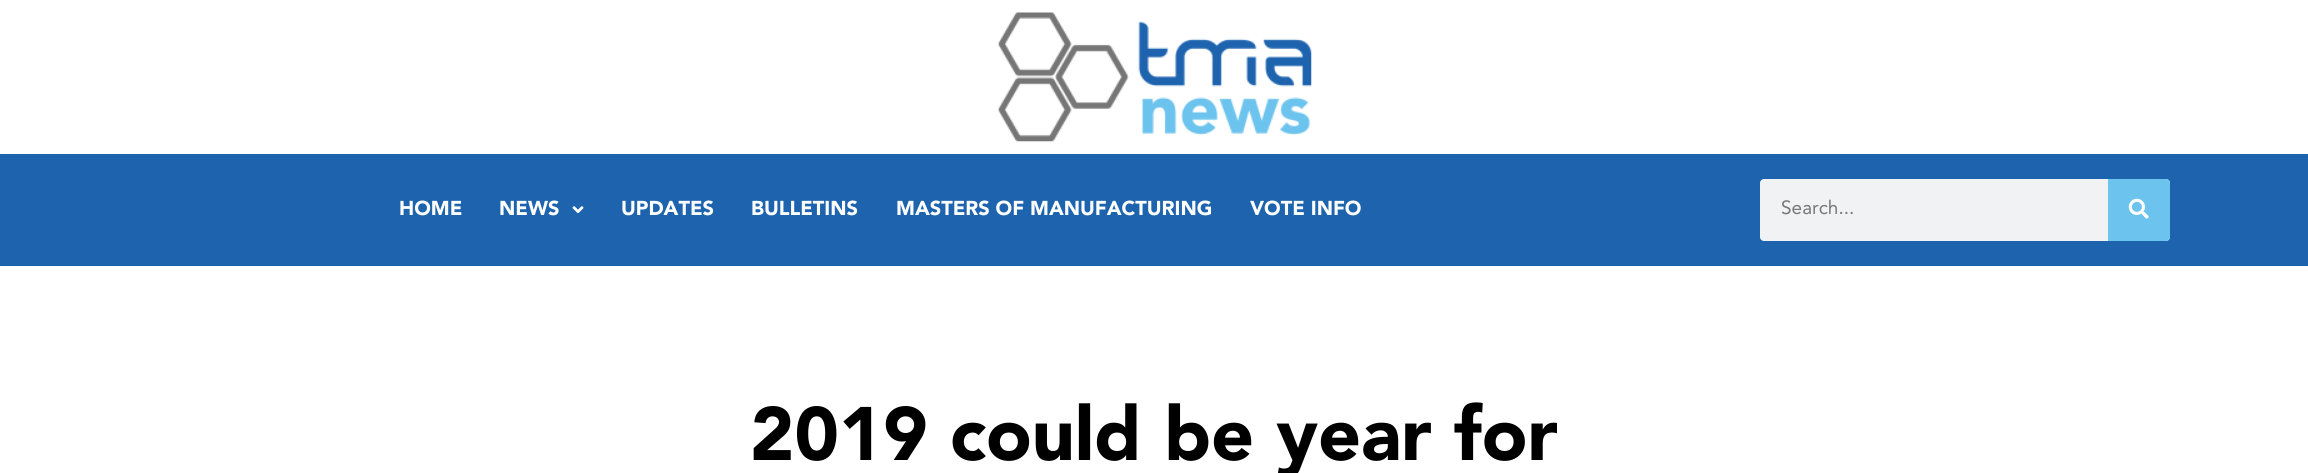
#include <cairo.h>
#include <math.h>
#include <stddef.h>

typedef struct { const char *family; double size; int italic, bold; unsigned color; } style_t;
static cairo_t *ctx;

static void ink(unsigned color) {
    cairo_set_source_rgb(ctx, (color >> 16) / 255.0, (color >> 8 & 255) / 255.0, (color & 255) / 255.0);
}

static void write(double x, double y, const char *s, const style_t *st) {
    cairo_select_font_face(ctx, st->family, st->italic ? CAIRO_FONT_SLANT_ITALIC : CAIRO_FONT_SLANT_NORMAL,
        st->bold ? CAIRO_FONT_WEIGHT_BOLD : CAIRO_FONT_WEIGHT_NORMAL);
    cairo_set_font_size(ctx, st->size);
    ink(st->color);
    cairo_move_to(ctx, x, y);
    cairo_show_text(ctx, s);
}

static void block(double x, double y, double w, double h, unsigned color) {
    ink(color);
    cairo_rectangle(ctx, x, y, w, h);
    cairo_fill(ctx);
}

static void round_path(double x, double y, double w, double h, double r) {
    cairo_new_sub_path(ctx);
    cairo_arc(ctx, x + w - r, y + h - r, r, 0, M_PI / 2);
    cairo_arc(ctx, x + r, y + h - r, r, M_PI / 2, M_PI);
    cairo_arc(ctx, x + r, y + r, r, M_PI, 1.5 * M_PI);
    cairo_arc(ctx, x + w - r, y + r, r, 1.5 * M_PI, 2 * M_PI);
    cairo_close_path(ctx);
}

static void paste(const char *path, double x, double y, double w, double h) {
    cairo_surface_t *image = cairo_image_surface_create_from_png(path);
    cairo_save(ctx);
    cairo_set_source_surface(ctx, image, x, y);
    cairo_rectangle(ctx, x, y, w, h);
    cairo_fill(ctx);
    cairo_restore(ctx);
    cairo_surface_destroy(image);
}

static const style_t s1 = {"Avenir Black", 20, 0, 0, 0xffffff};
static const style_t s2 = {"Avenir", 19, 0, 0, 0x79797a};
static const style_t s3 = {"Avenir Black", 75, 0, 0, 0x000000};

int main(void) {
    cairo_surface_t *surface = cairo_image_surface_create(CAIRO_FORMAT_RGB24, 2308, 473);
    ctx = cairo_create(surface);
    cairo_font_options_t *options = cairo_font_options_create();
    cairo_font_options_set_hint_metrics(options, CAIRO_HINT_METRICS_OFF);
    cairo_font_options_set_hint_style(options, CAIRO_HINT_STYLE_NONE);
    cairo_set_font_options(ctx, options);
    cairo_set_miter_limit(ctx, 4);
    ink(0xffffff);
    cairo_paint(ctx);
    paste("pic1.png", 998, 12, 314, 130);
    block(0, 154, 2308, 112, 0x1d63ae);
    write(399, 215, "HOME", &s1);
    write(499, 215, "NEWS", &s1);
    paste("pic2.png", 572, 206, 12, 8);
    write(621, 215, "UPDATES", &s1);
    write(751, 215, "BULLETINS", &s1);
    write(896, 215, "MASTERS OF MANUFACTURING", &s1);
    write(1250, 215, "VOTE INFO", &s1);
    ink(0xf1f2f3);
    round_path(1760, 179, 410, 62, 4);
    cairo_fill(ctx);
    write(1781, 214, "Search...", &s2);
    ink(0x6cc3ee);
    cairo_new_path(ctx);
    cairo_move_to(ctx, 2108, 179);
    cairo_line_to(ctx, 2166, 179);
    cairo_curve_to(ctx, 2168, 179, 2170, 181, 2170, 183);
    cairo_line_to(ctx, 2170, 237);
    cairo_curve_to(ctx, 2170, 239, 2168, 241, 2166, 241);
    cairo_line_to(ctx, 2108, 241);
    cairo_close_path(ctx);
    cairo_fill(ctx);
    paste("pic3.png", 2128, 198, 21, 21);
    write(750, 460, "2019 could be year for", &s3);
    cairo_surface_write_to_png(surface, "screenshot.png");
    cairo_font_options_destroy(options);
    cairo_destroy(ctx);
    cairo_surface_destroy(surface);
    return 0;
}
